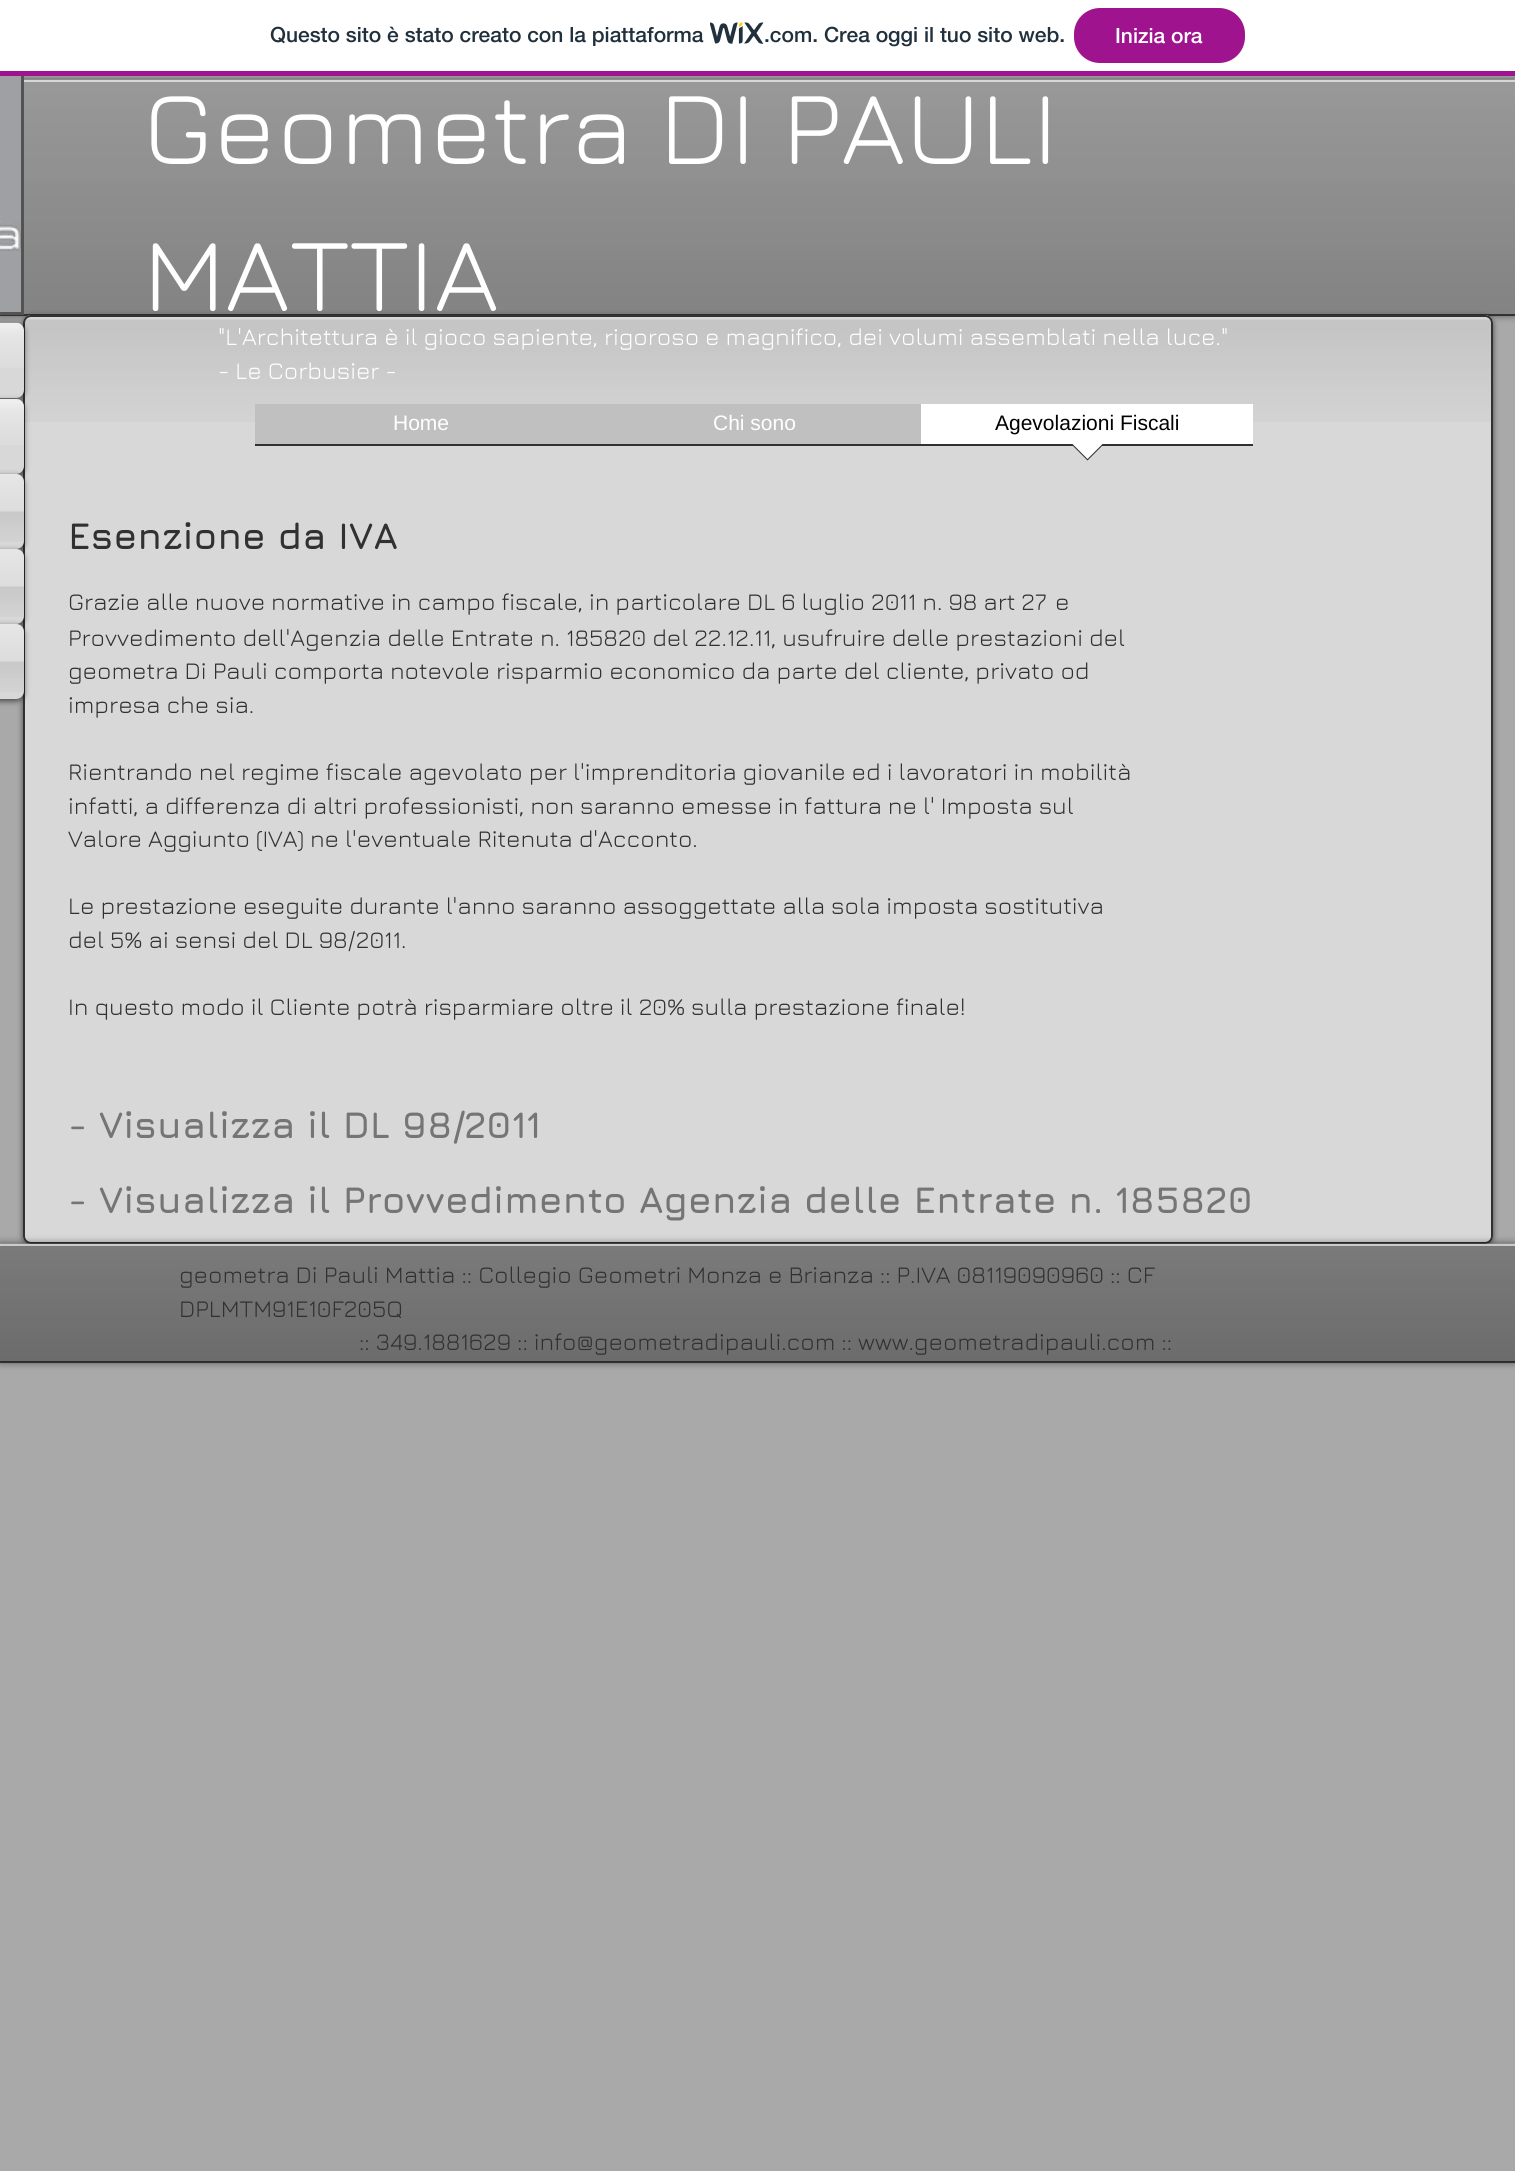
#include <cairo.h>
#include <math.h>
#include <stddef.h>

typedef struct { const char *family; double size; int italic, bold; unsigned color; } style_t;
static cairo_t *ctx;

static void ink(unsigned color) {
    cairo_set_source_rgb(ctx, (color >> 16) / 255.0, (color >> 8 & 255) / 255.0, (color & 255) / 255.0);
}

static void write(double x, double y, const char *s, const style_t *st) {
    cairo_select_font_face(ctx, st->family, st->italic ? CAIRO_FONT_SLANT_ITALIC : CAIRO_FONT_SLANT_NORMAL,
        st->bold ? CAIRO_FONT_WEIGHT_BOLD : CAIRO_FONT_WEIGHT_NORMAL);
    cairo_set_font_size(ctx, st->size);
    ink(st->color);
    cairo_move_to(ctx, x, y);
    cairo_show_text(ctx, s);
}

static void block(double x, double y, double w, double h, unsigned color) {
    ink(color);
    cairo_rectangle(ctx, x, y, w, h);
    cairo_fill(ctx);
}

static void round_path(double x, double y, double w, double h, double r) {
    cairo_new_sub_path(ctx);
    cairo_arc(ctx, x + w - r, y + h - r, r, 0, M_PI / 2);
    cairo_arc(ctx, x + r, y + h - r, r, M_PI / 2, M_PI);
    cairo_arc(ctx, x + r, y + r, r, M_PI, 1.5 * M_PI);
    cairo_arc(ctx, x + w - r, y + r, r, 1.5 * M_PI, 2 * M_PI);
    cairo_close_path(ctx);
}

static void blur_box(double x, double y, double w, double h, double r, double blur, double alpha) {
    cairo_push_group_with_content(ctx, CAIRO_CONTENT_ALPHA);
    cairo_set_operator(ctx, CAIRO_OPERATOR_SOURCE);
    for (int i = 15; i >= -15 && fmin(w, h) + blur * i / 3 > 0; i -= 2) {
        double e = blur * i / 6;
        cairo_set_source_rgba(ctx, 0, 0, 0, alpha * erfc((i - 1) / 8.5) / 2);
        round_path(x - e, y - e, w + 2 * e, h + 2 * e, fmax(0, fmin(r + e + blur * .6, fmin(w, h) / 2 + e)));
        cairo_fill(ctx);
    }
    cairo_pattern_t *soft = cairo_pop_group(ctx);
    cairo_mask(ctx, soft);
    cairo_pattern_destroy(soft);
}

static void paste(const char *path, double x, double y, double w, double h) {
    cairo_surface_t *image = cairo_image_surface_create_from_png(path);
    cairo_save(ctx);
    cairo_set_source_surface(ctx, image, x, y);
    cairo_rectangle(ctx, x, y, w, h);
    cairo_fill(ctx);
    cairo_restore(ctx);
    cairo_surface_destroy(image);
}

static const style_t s1 = {"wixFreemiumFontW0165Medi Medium", 21, 0, 0, 0x20303c};
static const style_t s2 = {"wixFreemiumFontW0165Medi Medium", 21, 0, 0, 0xffffff};
static const style_t s3 = {"Jura", 105, 0, 0, 0xffffff};
static const style_t s4 = {"Jura", 24, 0, 0, 0xffffff};
static const style_t s5 = {"Liberation Sans", 21, 0, 0, 0xffffff};
static const style_t s6 = {"Liberation Sans", 21, 0, 0, 0x000000};
static const style_t s7 = {"Jura", 37.5, 0, 1, 0x313131};
static const style_t s8 = {"Jura", 24, 0, 0, 0x313131};
static const style_t s9 = {"Jura", 37.5, 0, 1, 0x757575};

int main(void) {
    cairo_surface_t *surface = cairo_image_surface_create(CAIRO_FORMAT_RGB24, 1515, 2171);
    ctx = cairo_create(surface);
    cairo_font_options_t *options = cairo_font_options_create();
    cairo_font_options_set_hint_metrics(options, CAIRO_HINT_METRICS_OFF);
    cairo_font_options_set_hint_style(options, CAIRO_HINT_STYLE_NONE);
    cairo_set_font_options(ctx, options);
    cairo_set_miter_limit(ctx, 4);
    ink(0xa9a9a9);
    cairo_paint(ctx);
    ink(0x000000);
    blur_box(0, 80, 1515, 235, 0, 4, 0.6);
    block(0, 0, 1515, 71, 0xffffff);
    block(0, 71, 1515, 5, 0xa0138e);
    write(270, 42, "Questo sito è stato creato con la piattaforma", &s1);
    paste("pic1.png", 710, 22, 54, 22);
    write(764, 42, ".com. Crea oggi il tuo sito web.", &s1);
    ink(0xa0138e);
    round_path(1075, 9, 169, 53, 25);
    cairo_fill_preserve(ctx);
    cairo_stroke(ctx);
    write(1115, 43, "Inizia ora", &s2);
    block(24, 82, 1491, 233, 0x757575);
    paste("pic2.png", 24, 79, 1491, 236);
    cairo_set_source_rgba(ctx, 0, 0, 0, 0.6);
    cairo_rectangle(ctx, 0, 314, 1515, 2);
    cairo_fill(ctx);
    block(24, 80, 1491, 2, 0xd6d6d6);
    ink(0x000000);
    blur_box(23, 317, 1470, 928, 8, 3, 0.6);
    block(0, 76, 24, 239, 0x535353);
    paste("pic3.png", 0, 76, 21, 236);
    write(143, 164, "Geometra DI PAULI", &s3);
    write(143, 311, "MATTIA", &s3);
    ink(0xd8d8d8);
    round_path(23, 315, 1470, 929, 8);
    cairo_fill(ctx);
    paste("pic7.png", 23, 319, 1469, 103);
    round_path(24, 316, 1468, 927, 7);
    ink(0x313131);
    cairo_stroke(ctx);
    ink(0x000000);
    blur_box(-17, 324, 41, 75, 8, 3, 0.6);
    ink(0xd8d8d8);
    cairo_new_path(ctx);
    cairo_move_to(ctx, 0, 323);
    cairo_line_to(ctx, 16, 323);
    cairo_curve_to(ctx, 20.5, 323, 24, 326.5, 24, 331);
    cairo_line_to(ctx, 24, 390);
    cairo_curve_to(ctx, 24, 394.5, 20.5, 398, 16, 398);
    cairo_line_to(ctx, 0, 398);
    cairo_close_path(ctx);
    cairo_fill(ctx);
    paste("pic4.png", 0, 322, 24, 46);
    write(218, 345, "\"L'Architettura è il gioco sapiente, rigoroso e magnifico, dei volumi assemblati nella luce.\"", &s4);
    write(218, 379, "- Le Corbusier -", &s4);
    ink(0x000000);
    blur_box(-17, 401, 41, 75, 8, 3, 0.6);
    ink(0xd8d8d8);
    cairo_new_path(ctx);
    cairo_move_to(ctx, 0, 399);
    cairo_line_to(ctx, 16, 399);
    cairo_curve_to(ctx, 20.5, 399, 24, 402.5, 24, 407);
    cairo_line_to(ctx, 24, 466);
    cairo_curve_to(ctx, 24, 470.5, 20.5, 474, 16, 474);
    cairo_line_to(ctx, 0, 474);
    cairo_close_path(ctx);
    cairo_fill(ctx);
    paste("pic5.png", 0, 399, 24, 46);
    block(255, 404, 666, 40, 0xc0c0c0);
    block(255, 444, 998, 2, 0x313131);
    write(393, 430, "Home", &s5);
    write(713, 430, "Chi sono", &s5);
    block(921, 404, 332, 40, 0xffffff);
    write(995, 430, "Agevolazioni Fiscali", &s6);
    ink(0x313131);
    cairo_new_path(ctx);
    cairo_move_to(ctx, 1071, 444);
    cairo_line_to(ctx, 1104, 444);
    cairo_line_to(ctx, 1087.5, 460.5);
    cairo_close_path(ctx);
    cairo_fill(ctx);
    ink(0xffffff);
    cairo_new_path(ctx);
    cairo_move_to(ctx, 1072.5, 444);
    cairo_line_to(ctx, 1102.5, 444);
    cairo_line_to(ctx, 1087.5, 459);
    cairo_close_path(ctx);
    cairo_fill(ctx);
    ink(0x000000);
    blur_box(-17, 476, 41, 75, 8, 3, 0.6);
    ink(0xd8d8d8);
    cairo_new_path(ctx);
    cairo_move_to(ctx, 0, 474);
    cairo_line_to(ctx, 16, 474);
    cairo_curve_to(ctx, 20.5, 474, 24, 477.5, 24, 482);
    cairo_line_to(ctx, 24, 541);
    cairo_curve_to(ctx, 24, 545.5, 20.5, 549, 16, 549);
    cairo_line_to(ctx, 0, 549);
    cairo_close_path(ctx);
    cairo_fill(ctx);
    paste("pic6.png", 0, 474, 24, 68);
    write(68, 549, "Esenzione da IVA", &s7);
    ink(0x000000);
    blur_box(-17, 551, 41, 75, 8, 3, 0.6);
    ink(0xd8d8d8);
    cairo_new_path(ctx);
    cairo_move_to(ctx, 0, 549);
    cairo_line_to(ctx, 16, 549);
    cairo_curve_to(ctx, 20.5, 549, 24, 552.5, 24, 557);
    cairo_line_to(ctx, 24, 616);
    cairo_curve_to(ctx, 24, 620.5, 20.5, 624, 16, 624);
    cairo_line_to(ctx, 0, 624);
    cairo_close_path(ctx);
    cairo_fill(ctx);
    paste("pic6.png", 0, 549, 24, 68);
    write(68, 610, "Grazie alle nuove normative in campo fiscale, in particolare DL 6 luglio 2011 n. 98 art 27", &s8);
    write(1055, 610, "e", &s8);
    write(68, 646, "Provvedimento dell'Agenzia delle Entrate n. 185820 del 22.12.11, usufruire delle prestazioni del", &s8);
    write(68, 679, "geometra Di Pauli comporta notevole risparmio economico da parte del cliente, privato od", &s8);
    write(68, 713, "impresa che sia.", &s8);
    write(68, 780, "Rientrando nel regime fiscale agevolato per l'imprenditoria giovanile ed i lavoratori in mobilità", &s8);
    write(68, 814, "infatti, a differenza di altri professionisti, non saranno emesse in fattura ne l' Imposta sul", &s8);
    write(68, 847, "Valore Aggiunto (IVA) ne l'eventuale Ritenuta d'Acconto.", &s8);
    write(68, 914, "Le prestazione eseguite durante l'anno saranno assoggettate alla sola imposta sostitutiva", &s8);
    write(68, 948, "del 5% ai sensi del DL 98/2011.", &s8);
    write(68, 1015, "In questo modo il Cliente potrà risparmiare oltre il 20% sulla prestazione finale!", &s8);
    ink(0x000000);
    blur_box(-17, 626, 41, 75, 8, 3, 0.6);
    ink(0xd8d8d8);
    cairo_new_path(ctx);
    cairo_move_to(ctx, 0, 624);
    cairo_line_to(ctx, 16, 624);
    cairo_curve_to(ctx, 20.5, 624, 24, 627.5, 24, 632);
    cairo_line_to(ctx, 24, 691);
    cairo_curve_to(ctx, 24, 695.5, 20.5, 699, 16, 699);
    cairo_line_to(ctx, 0, 699);
    cairo_close_path(ctx);
    cairo_fill(ctx);
    paste("pic6.png", 0, 624, 24, 68);
    write(68, 1138, "- Visualizza il DL 98/2011", &s9);
    write(68, 1213, "- Visualizza il Provvedimento Agenzia delle Entrate n. 185820", &s9);
    ink(0x000000);
    blur_box(0, 1244, 1515, 118, 0, 4, 0.6);
    block(0, 1246, 1515, 116, 0x4c4c4c);
    paste("pic8.png", 0, 1243, 1515, 119);
    cairo_set_source_rgba(ctx, 0, 0, 0, 0.6);
    cairo_rectangle(ctx, 0, 1361, 1515, 2);
    cairo_fill(ctx);
    block(0, 1244, 1515, 2, 0xcacaca);
    write(179, 1283, "geometra Di Pauli Mattia :: Collegio Geometri Monza e Brianza :: P.IVA 08119090960 :: CF", &s8);
    write(179, 1317, "DPLMTM91E10F205Q", &s8);
    write(359, 1350, ":: 349.1881629 :: info@geometradipauli.com :: www.geometradipauli.com ::", &s8);
    cairo_surface_write_to_png(surface, "screenshot.png");
    cairo_font_options_destroy(options);
    cairo_destroy(ctx);
    cairo_surface_destroy(surface);
    return 0;
}
